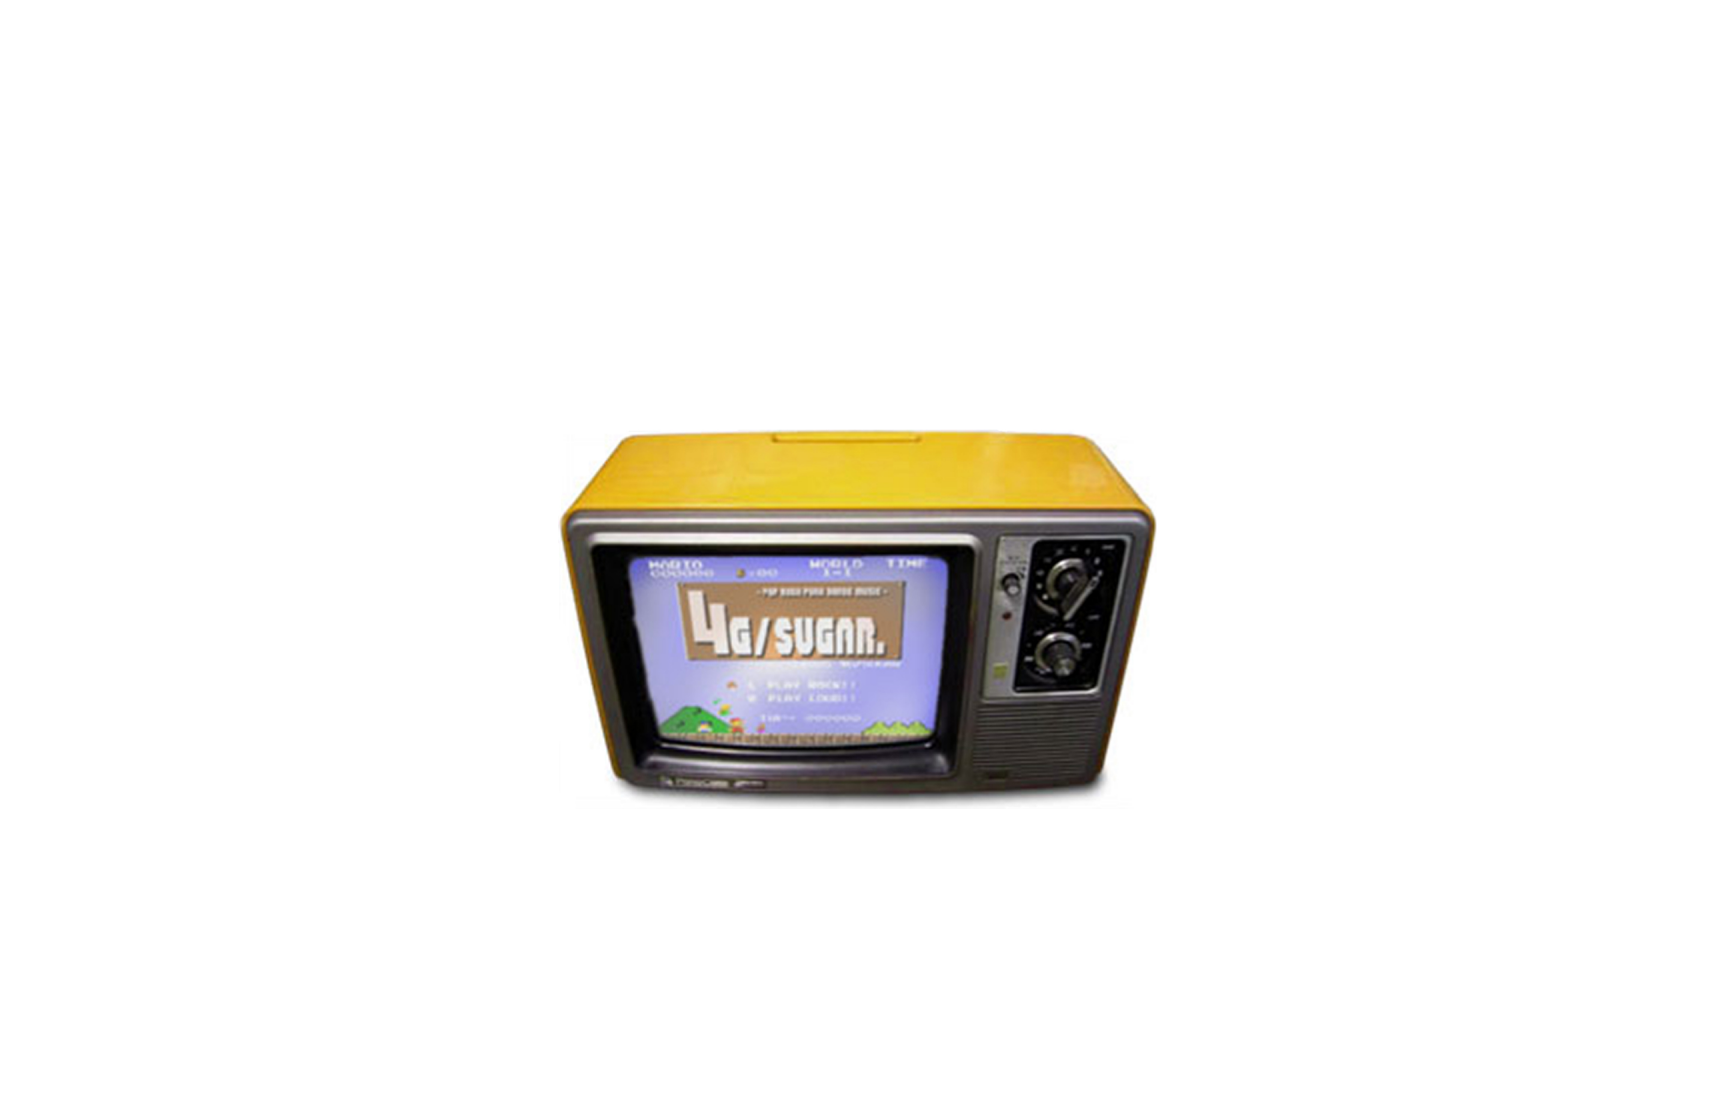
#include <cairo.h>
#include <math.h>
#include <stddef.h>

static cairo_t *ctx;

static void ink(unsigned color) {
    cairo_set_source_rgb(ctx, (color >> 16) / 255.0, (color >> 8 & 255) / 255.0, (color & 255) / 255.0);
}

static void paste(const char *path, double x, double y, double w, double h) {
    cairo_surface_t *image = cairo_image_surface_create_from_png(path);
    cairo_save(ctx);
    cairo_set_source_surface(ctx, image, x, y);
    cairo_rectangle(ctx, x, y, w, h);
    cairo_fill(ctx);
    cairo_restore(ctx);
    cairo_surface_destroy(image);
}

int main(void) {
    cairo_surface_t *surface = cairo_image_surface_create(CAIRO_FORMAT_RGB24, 1714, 1110);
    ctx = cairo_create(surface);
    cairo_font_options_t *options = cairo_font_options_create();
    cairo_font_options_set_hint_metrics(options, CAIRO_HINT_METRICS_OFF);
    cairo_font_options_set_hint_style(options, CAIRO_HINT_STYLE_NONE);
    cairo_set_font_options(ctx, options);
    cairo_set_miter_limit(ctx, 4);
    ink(0xffffff);
    cairo_paint(ctx);
    paste("pic1.png", 558, 429, 599, 380);
    cairo_surface_write_to_png(surface, "screenshot.png");
    cairo_font_options_destroy(options);
    cairo_destroy(ctx);
    cairo_surface_destroy(surface);
    return 0;
}
